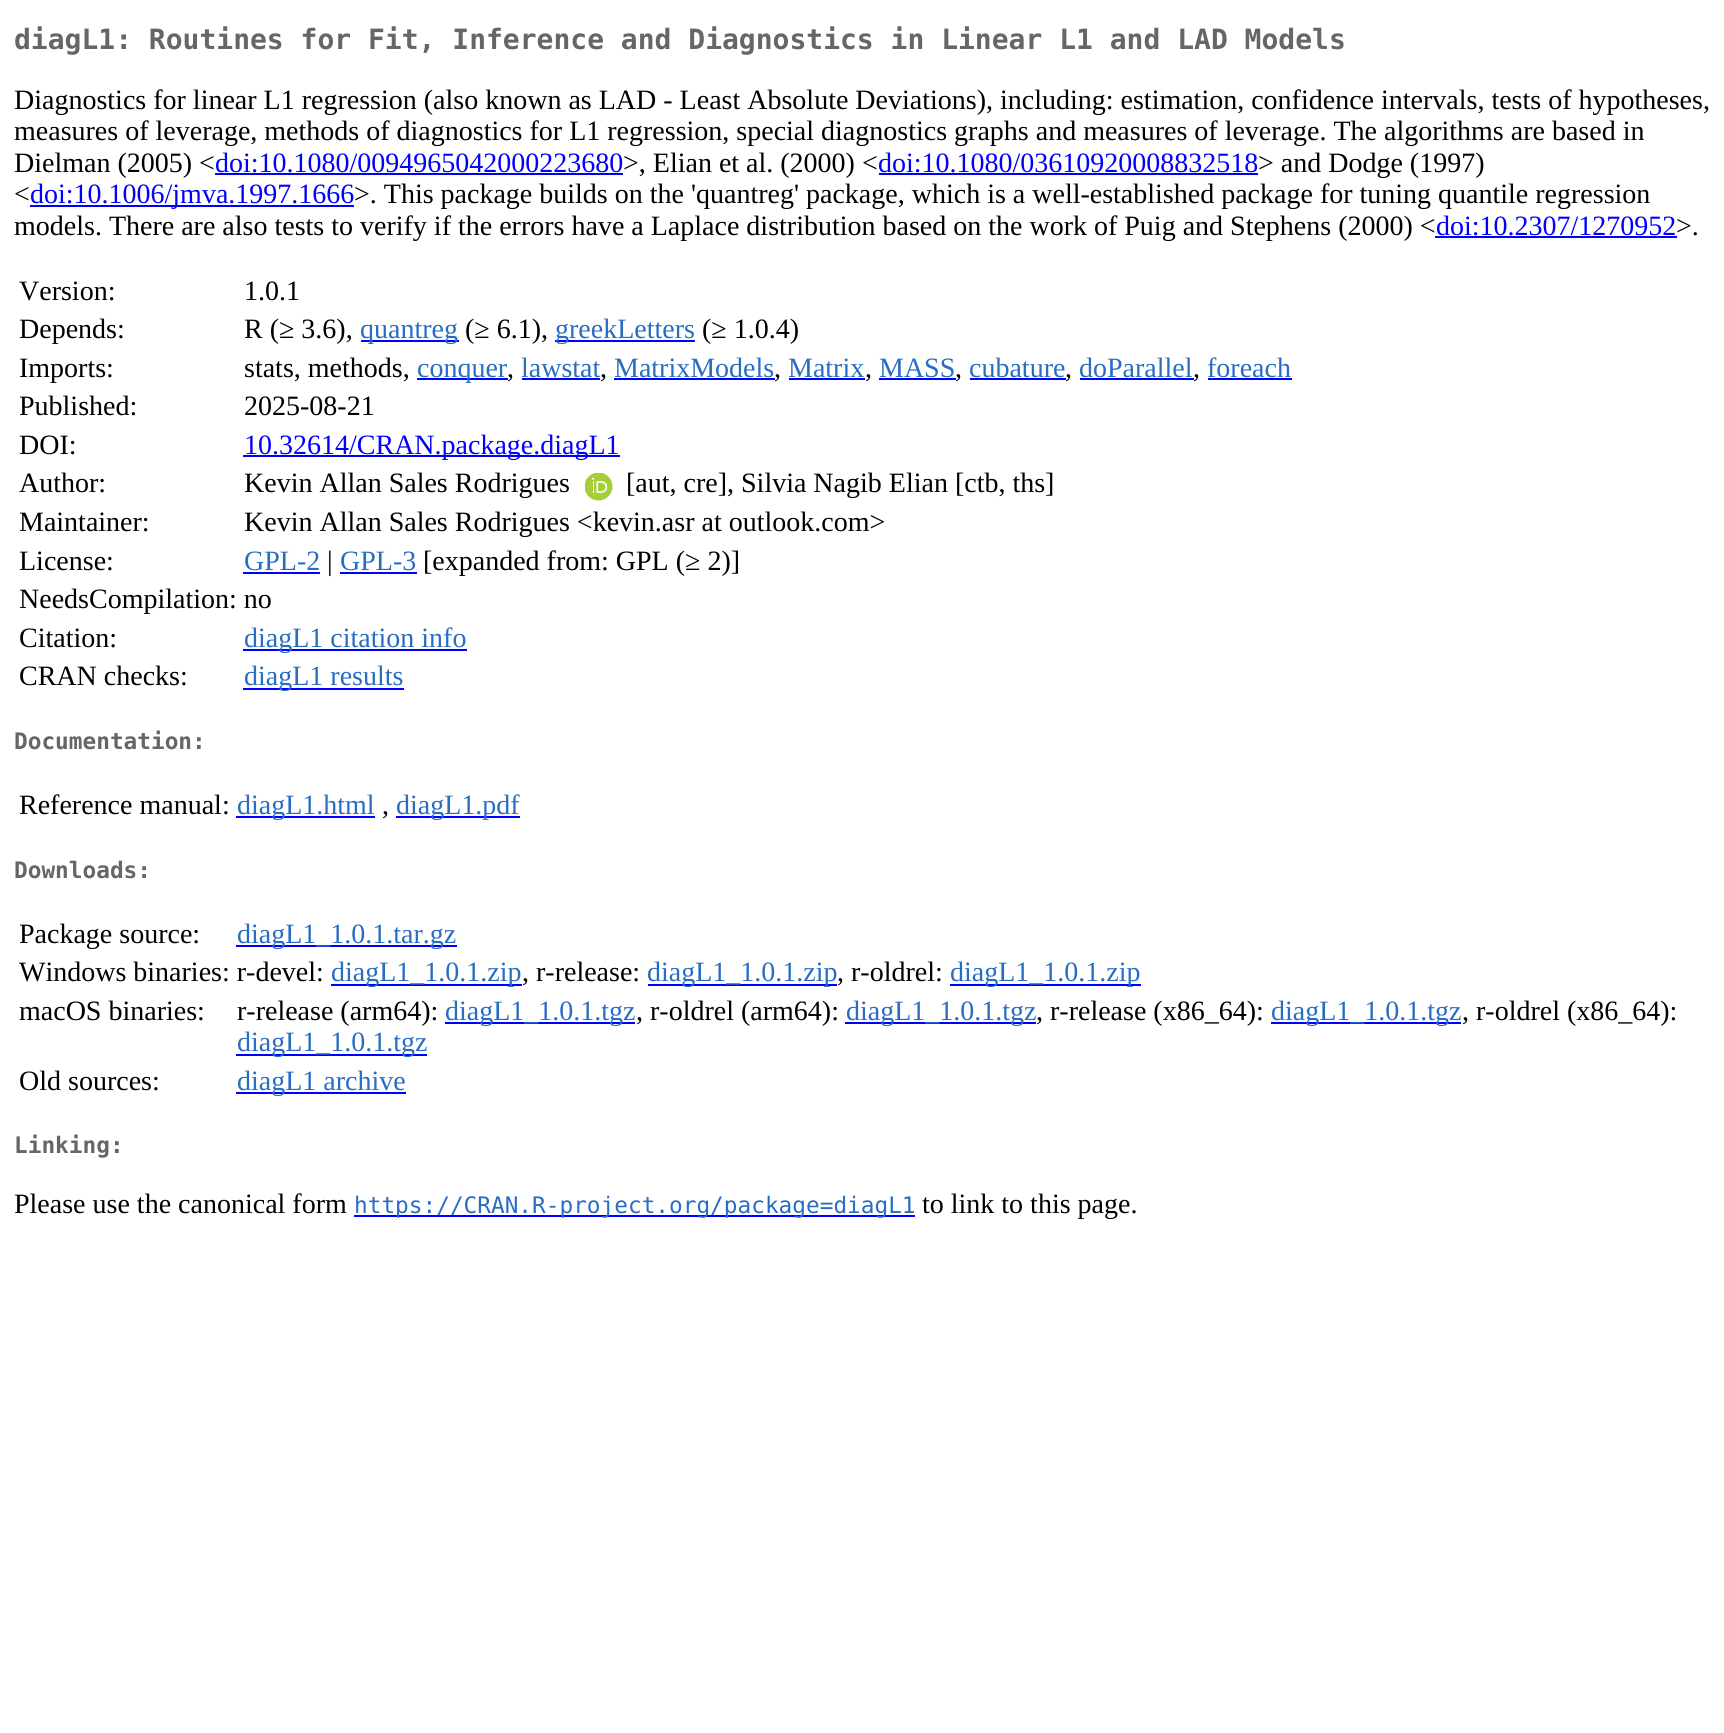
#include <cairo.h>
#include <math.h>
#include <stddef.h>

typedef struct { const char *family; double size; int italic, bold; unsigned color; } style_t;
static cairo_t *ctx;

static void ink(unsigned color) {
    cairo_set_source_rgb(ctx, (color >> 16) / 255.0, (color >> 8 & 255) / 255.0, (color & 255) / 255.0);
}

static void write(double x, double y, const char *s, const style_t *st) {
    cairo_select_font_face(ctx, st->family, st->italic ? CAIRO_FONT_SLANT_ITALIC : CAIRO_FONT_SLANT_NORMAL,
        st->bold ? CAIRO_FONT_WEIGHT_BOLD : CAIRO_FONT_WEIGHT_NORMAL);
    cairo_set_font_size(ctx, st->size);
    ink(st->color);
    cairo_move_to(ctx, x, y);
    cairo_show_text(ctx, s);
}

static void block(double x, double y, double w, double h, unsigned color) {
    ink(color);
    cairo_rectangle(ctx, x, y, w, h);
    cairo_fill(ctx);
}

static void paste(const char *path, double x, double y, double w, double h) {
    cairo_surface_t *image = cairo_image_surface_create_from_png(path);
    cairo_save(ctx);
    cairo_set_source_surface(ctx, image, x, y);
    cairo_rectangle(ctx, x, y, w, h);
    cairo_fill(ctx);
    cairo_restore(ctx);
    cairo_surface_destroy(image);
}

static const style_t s1 = {"DejaVu Sans Mono", 28, 0, 1, 0x666666};
static const style_t s2 = {"Liberation Serif", 28, 0, 0, 0x000000};
static const style_t s3 = {"Liberation Serif", 28, 0, 0, 0x0000ff};
static const style_t s4 = {"Liberation Serif", 28, 0, 0, 0x276dc3};
static const style_t s5 = {"DejaVu Sans Mono", 22.75, 0, 1, 0x666666};
static const style_t s6 = {"DejaVu Sans Mono", 22.75, 0, 0, 0x276dc3};

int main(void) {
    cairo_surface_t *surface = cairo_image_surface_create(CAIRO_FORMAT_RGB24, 1724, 1733);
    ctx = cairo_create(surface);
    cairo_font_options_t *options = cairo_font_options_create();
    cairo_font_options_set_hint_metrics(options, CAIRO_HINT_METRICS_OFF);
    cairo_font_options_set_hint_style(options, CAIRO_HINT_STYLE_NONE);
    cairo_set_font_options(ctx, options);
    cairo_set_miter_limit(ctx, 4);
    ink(0xffffff);
    cairo_paint(ctx);
    write(14, 49, "diagL1: Routines for Fit, Inference and Diagnostics in Linear L1 and LAD Models", &s1);
    write(14, 109, "Diagnostics for linear L1 regression (also known as LAD - Least Absolute Deviations), including: estimation, confidence intervals, tests of hypotheses,", &s2);
    write(14, 140, "measures of leverage, methods of diagnostics for L1 regression, special diagnostics graphs and measures of leverage. The algorithms are based in", &s2);
    write(14, 172, "Dielman (2005) <", &s2);
    write(215, 172, "doi:10.1080/0094965042000223680", &s3);
    block(215, 173, 408, 2, 0x0000ff);
    write(623, 172, ">, Elian et al. (2000) <", &s2);
    write(878, 172, "doi:10.1080/03610920008832518", &s3);
    block(879, 173, 379, 2, 0x0000ff);
    write(1258, 172, "> and Dodge (1997)", &s2);
    write(14, 203, "<", &s2);
    block(30, 205, 324, 2, 0x0000ff);
    write(30, 203, "doi:10.1006/jmva.1997.1666", &s3);
    write(354, 203, ">. This package builds on the 'quantreg' package, which is a well-established package for tuning quantile regression", &s2);
    write(14, 235, "models. There are also tests to verify if the errors have a Laplace distribution based on the work of Puig and Stephens (2000) <", &s2);
    write(1436, 235, "doi:10.2307/1270952", &s3);
    block(1435, 236, 242, 2, 0x0000ff);
    write(1676, 235, ">.", &s2);
    write(19, 300, "Version:", &s2);
    write(244, 300, "1.0.1", &s2);
    write(19, 338, "Depends:", &s2);
    write(244, 338, "R (≥ 3.6),", &s2);
    block(361, 340, 98, 2, 0x0000ff);
    write(360, 338, "quantreg", &s4);
    write(465, 338, "(≥ 6.1),", &s2);
    block(555, 340, 140, 2, 0x0000ff);
    write(555, 338, "greekLetters", &s4);
    write(702, 338, "(≥ 1.0.4)", &s2);
    write(19, 377, "Imports:", &s2);
    write(244, 377, "stats, methods,", &s2);
    block(417, 378, 91, 2, 0x0000ff);
    write(417, 377, "conquer", &s4);
    write(507, 377, ",", &s2);
    write(521, 377, "lawstat", &s4);
    block(522, 378, 78, 2, 0x0000ff);
    write(600, 377, ",", &s2);
    write(614, 377, "MatrixModels", &s4);
    block(614, 378, 161, 2, 0x0000ff);
    write(774, 377, ",", &s2);
    write(788, 377, "Matrix", &s4);
    block(789, 378, 76, 2, 0x0000ff);
    write(865, 377, ",", &s2);
    write(879, 377, "MASS", &s4);
    block(879, 378, 77, 2, 0x0000ff);
    write(955, 377, ",", &s2);
    write(969, 377, "cubature", &s4);
    block(970, 378, 96, 2, 0x0000ff);
    write(1065, 377, ",", &s2);
    write(1079, 377, "doParallel", &s4);
    block(1080, 378, 114, 2, 0x0000ff);
    write(1193, 377, ",", &s2);
    write(1207, 377, "foreach", &s4);
    block(1208, 378, 84, 2, 0x0000ff);
    write(19, 415, "Published:", &s2);
    write(244, 415, "2025-08-21", &s2);
    write(19, 454, "DOI:", &s2);
    block(243, 455, 377, 2, 0x0000ff);
    write(244, 454, "10.32614/CRAN.package.diagL1", &s3);
    write(19, 492, "Author:", &s2);
    write(244, 492, "Kevin Allan Sales Rodrigues", &s2);
    paste("pic1.png", 585, 473, 28, 28);
    write(626, 492, "[aut, cre], Silvia Nagib Elian [ctb, ths]", &s2);
    write(19, 531, "Maintainer:", &s2);
    write(244, 531, "Kevin Allan Sales Rodrigues <kevin.asr at outlook.com>", &s2);
    write(19, 570, "License:", &s2);
    write(244, 570, "GPL-2", &s4);
    block(243, 572, 77, 2, 0x0000ff);
    write(327, 570, "|", &s2);
    write(340, 570, "GPL-3", &s4);
    block(340, 572, 77, 2, 0x0000ff);
    write(423, 570, "[expanded from: GPL (≥ 2)]", &s2);
    write(19, 608, "NeedsCompilation: no", &s2);
    write(19, 647, "Citation:", &s2);
    block(243, 649, 224, 2, 0x0000ff);
    write(244, 647, "diagL1 citation info", &s4);
    write(19, 685, "CRAN checks:", &s2);
    block(243, 688, 161, 2, 0x0000ff);
    write(244, 685, "diagL1 results", &s4);
    write(14, 749, "Documentation:", &s5);
    write(19, 814, "Reference manual:", &s2);
    block(236, 816, 139, 2, 0x0000ff);
    write(237, 814, "diagL1.html", &s4);
    write(382, 814, ",", &s2);
    block(396, 816, 124, 2, 0x0000ff);
    write(396, 814, "diagL1.pdf", &s4);
    write(14, 878, "Downloads:", &s5);
    write(19, 943, "Package source:", &s2);
    block(236, 945, 221, 2, 0x0000ff);
    write(237, 943, "diagL1_1.0.1.tar.gz", &s4);
    write(19, 981, "Windows binaries: r-devel:", &s2);
    block(331, 984, 191, 2, 0x0000ff);
    write(331, 981, "diagL1_1.0.1.zip", &s4);
    write(522, 981, ", r-release:", &s2);
    block(648, 984, 189, 2, 0x0000ff);
    write(647, 981, "diagL1_1.0.1.zip", &s4);
    write(837, 981, ", r-oldrel:", &s2);
    block(950, 984, 191, 2, 0x0000ff);
    write(950, 981, "diagL1_1.0.1.zip", &s4);
    write(19, 1020, "macOS binaries:", &s2);
    write(237, 1020, "r-release (arm64):", &s2);
    block(445, 1022, 190, 2, 0x0000ff);
    write(445, 1020, "diagL1_1.0.1.tgz", &s4);
    write(636, 1020, ", r-oldrel (arm64):", &s2);
    block(845, 1022, 191, 2, 0x0000ff);
    write(846, 1020, "diagL1_1.0.1.tgz", &s4);
    write(1036, 1020, ", r-release (x86_64):", &s2);
    block(1271, 1022, 190, 2, 0x0000ff);
    write(1271, 1020, "diagL1_1.0.1.tgz", &s4);
    write(1462, 1020, ", r-oldrel (x86_64):", &s2);
    block(236, 1054, 191, 2, 0x0000ff);
    write(237, 1051, "diagL1_1.0.1.tgz", &s4);
    write(19, 1090, "Old sources:", &s2);
    block(236, 1092, 170, 2, 0x0000ff);
    write(237, 1090, "diagL1 archive", &s4);
    write(14, 1153, "Linking:", &s5);
    write(14, 1213, "Please use the canonical form", &s2);
    block(354, 1215, 561, 2, 0x0000ff);
    write(354, 1213, "https://CRAN.R-project.org/package=diagL1", &s6);
    write(922, 1213, "to link to this page.", &s2);
    cairo_surface_write_to_png(surface, "screenshot.png");
    cairo_font_options_destroy(options);
    cairo_destroy(ctx);
    cairo_surface_destroy(surface);
    return 0;
}
